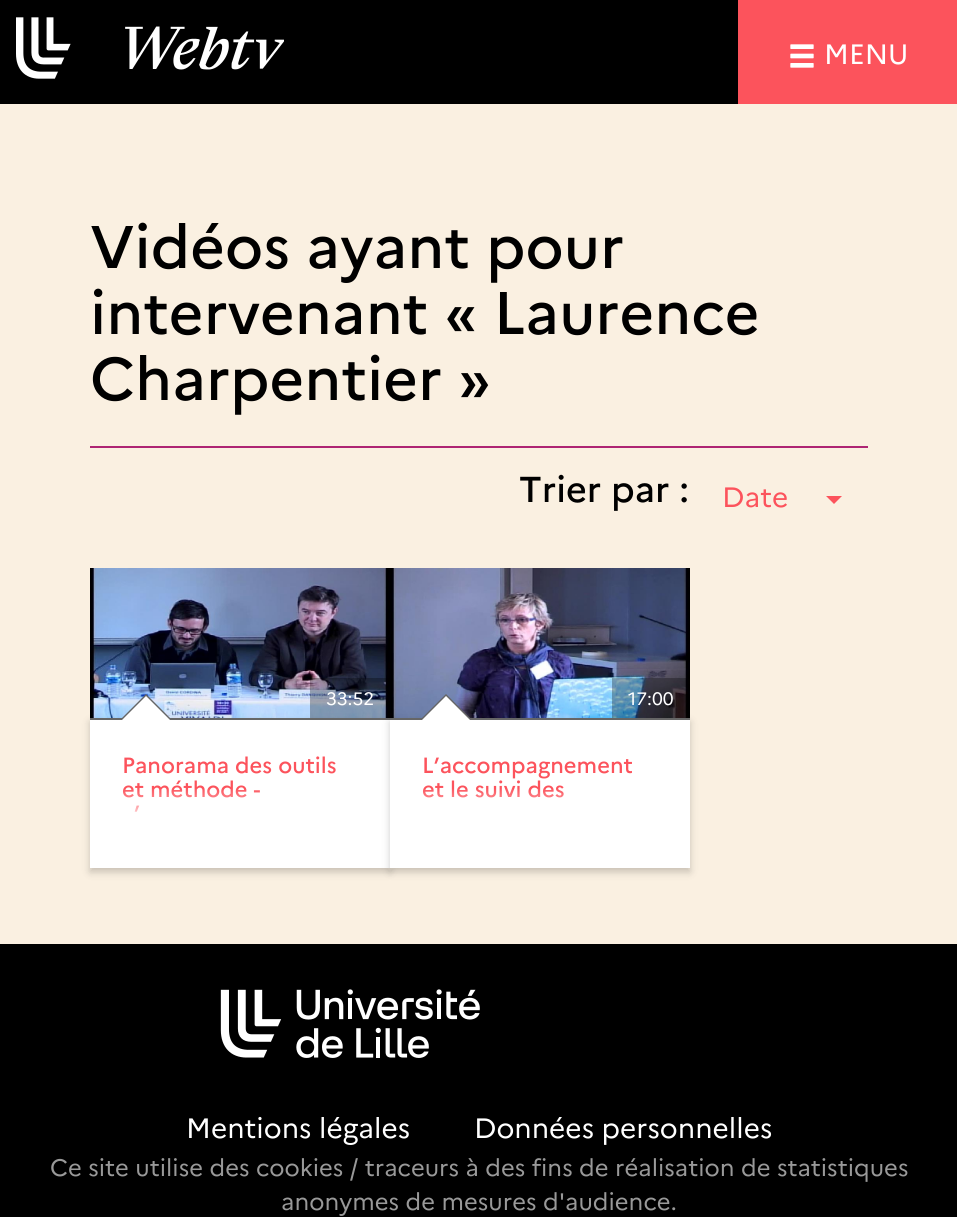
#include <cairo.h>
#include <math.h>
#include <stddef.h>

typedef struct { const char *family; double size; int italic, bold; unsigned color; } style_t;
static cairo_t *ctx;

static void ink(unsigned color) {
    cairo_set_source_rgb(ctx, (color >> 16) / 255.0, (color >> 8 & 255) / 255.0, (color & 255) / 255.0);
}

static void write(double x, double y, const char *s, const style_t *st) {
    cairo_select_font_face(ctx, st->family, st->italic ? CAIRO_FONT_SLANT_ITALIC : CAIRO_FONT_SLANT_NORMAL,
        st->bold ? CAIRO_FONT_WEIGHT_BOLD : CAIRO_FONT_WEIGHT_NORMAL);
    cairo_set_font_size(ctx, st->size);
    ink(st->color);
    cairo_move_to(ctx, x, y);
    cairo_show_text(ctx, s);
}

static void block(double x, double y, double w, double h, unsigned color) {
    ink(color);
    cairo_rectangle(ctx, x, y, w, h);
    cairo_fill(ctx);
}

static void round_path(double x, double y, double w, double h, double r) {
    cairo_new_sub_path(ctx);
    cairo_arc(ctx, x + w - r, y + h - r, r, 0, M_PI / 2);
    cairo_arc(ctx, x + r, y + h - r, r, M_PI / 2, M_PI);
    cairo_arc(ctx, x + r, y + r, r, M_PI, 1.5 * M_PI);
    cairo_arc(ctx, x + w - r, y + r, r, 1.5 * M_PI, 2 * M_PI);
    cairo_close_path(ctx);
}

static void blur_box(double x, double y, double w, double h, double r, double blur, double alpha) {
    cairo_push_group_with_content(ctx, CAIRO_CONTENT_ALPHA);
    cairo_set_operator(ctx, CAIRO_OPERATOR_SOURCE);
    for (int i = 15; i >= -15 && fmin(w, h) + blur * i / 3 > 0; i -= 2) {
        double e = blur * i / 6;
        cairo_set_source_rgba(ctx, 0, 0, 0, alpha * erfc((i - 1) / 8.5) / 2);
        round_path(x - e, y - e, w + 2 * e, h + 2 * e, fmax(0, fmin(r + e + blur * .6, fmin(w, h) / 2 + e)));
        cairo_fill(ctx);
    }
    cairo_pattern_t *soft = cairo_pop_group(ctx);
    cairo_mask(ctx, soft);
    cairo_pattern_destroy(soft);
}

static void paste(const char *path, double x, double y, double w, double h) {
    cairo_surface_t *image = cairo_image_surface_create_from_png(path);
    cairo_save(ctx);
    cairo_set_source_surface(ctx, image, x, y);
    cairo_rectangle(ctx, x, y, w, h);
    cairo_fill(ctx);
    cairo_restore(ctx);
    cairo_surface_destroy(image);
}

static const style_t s1 = {"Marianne", 28, 0, 0, 0xffffff};
static const style_t s2 = {"Marianne Medium", 60, 0, 0, 0x000000};
static const style_t s3 = {"Marianne Medium", 36, 0, 0, 0x000000};
static const style_t s4 = {"Marianne", 28, 0, 0, 0xfc535c};
static const style_t s5 = {"Marianne", 18, 0, 0, 0xffffff};
static const style_t s6 = {"Marianne Medium", 22, 0, 0, 0xfc535c};
static const style_t s7 = {"Marianne", 23.8, 0, 0, 0x999999};

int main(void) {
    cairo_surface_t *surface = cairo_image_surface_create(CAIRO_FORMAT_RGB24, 957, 1217);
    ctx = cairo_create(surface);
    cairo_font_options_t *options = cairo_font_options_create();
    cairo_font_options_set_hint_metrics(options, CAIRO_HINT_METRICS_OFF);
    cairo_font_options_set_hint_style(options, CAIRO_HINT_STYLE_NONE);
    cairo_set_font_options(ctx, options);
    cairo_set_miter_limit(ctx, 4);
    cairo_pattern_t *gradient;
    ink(0xfaf0e1);
    cairo_paint(ctx);
    block(0, 0, 738, 104, 0x000000);
    paste("pic1.png", 16, 17, 268, 62);
    block(738, 0, 219, 104, 0xfc535c);
    paste("pic2.png", 790, 44, 24, 24);
    write(824, 64, "MENU", &s1);
    block(90, 446, 778, 2, 0xae2573);
    write(90, 268, "Vidéos ayant pour", &s2);
    write(90, 334, "intervenant « Laurence", &s2);
    write(90, 400, "Charpentier »", &s2);
    write(519, 502, "Trier par :", &s3);
    write(722, 507, "Date", &s4);
    cairo_new_path(ctx);
    cairo_move_to(ctx, 826, 496);
    cairo_line_to(ctx, 842, 496);
    cairo_line_to(ctx, 834, 504);
    cairo_close_path(ctx);
    cairo_fill(ctx);
    paste("pic3.png", 90, 568, 300, 150);
    cairo_set_source_rgba(ctx, 0, 0, 0, 0.3);
    cairo_rectangle(ctx, 310, 678, 80, 40);
    cairo_fill(ctx);
    write(326, 705, "33:52", &s5);
    ink(0x000000);
    blur_box(90, 722, 300, 150, 0, 4, 0.2);
    block(90, 720, 300, 148, 0xffffff);
    block(90, 718, 300, 2, 0x666666);
    cairo_new_path(ctx);
    cairo_move_to(ctx, 170, 718);
    cairo_line_to(ctx, 122, 718);
    cairo_line_to(ctx, 146, 694);
    cairo_close_path(ctx);
    cairo_fill(ctx);
    ink(0xffffff);
    cairo_new_path(ctx);
    cairo_move_to(ctx, 170, 720);
    cairo_line_to(ctx, 122, 720);
    cairo_line_to(ctx, 146, 696);
    cairo_close_path(ctx);
    cairo_fill(ctx);
    write(122, 773, "Panorama des outils", &s6);
    write(122, 797, "et méthode -", &s6);
    write(134, 821, "’", &s6);
    gradient = cairo_pattern_create_linear(240, 788, 240, 836);
    cairo_pattern_add_color_stop_rgba(gradient, 0, 1, 1, 1, 0);
    cairo_pattern_add_color_stop_rgba(gradient, 0.8, 1, 1, 1, 1);
    cairo_set_source(ctx, gradient);
    cairo_pattern_destroy(gradient);
    cairo_rectangle(ctx, 123, 789, 137, 23);
    cairo_fill(ctx);
    paste("pic4.png", 390, 568, 300, 150);
    cairo_set_source_rgba(ctx, 0, 0, 0, 0.3);
    cairo_rectangle(ctx, 612, 678, 75, 40);
    cairo_fill(ctx);
    write(628, 705, "17:00", &s5);
    ink(0x000000);
    blur_box(390, 722, 300, 150, 0, 4, 0.2);
    block(390, 720, 300, 148, 0xffffff);
    block(390, 718, 300, 2, 0x666666);
    cairo_new_path(ctx);
    cairo_move_to(ctx, 470, 718);
    cairo_line_to(ctx, 422, 718);
    cairo_line_to(ctx, 446, 694);
    cairo_close_path(ctx);
    cairo_fill(ctx);
    ink(0xffffff);
    cairo_new_path(ctx);
    cairo_move_to(ctx, 470, 720);
    cairo_line_to(ctx, 422, 720);
    cairo_line_to(ctx, 446, 696);
    cairo_close_path(ctx);
    cairo_fill(ctx);
    write(422, 773, "L’accompagnement", &s6);
    write(422, 797, "et le suivi des", &s6);
    gradient = cairo_pattern_create_linear(540, 788, 540, 836);
    cairo_pattern_add_color_stop_rgba(gradient, 0, 1, 1, 1, 0);
    cairo_pattern_add_color_stop_rgba(gradient, 0.8, 1, 1, 1, 1);
    cairo_set_source(ctx, gradient);
    cairo_pattern_destroy(gradient);
    cairo_rectangle(ctx, 423, 789, 141, 9);
    cairo_fill(ctx);
    block(0, 944, 957, 273, 0x000000);
    paste("pic5.png", 220, 989, 260, 69);
    write(186, 1138, "Mentions légales", &s1);
    write(474, 1138, "Données personnelles", &s1);
    write(50, 1176, "Ce site utilise des cookies / traceurs à des fins de réalisation de statistiques", &s7);
    write(281, 1210, "anonymes de mesures d'audience.", &s7);
    cairo_surface_write_to_png(surface, "screenshot.png");
    cairo_font_options_destroy(options);
    cairo_destroy(ctx);
    cairo_surface_destroy(surface);
    return 0;
}
